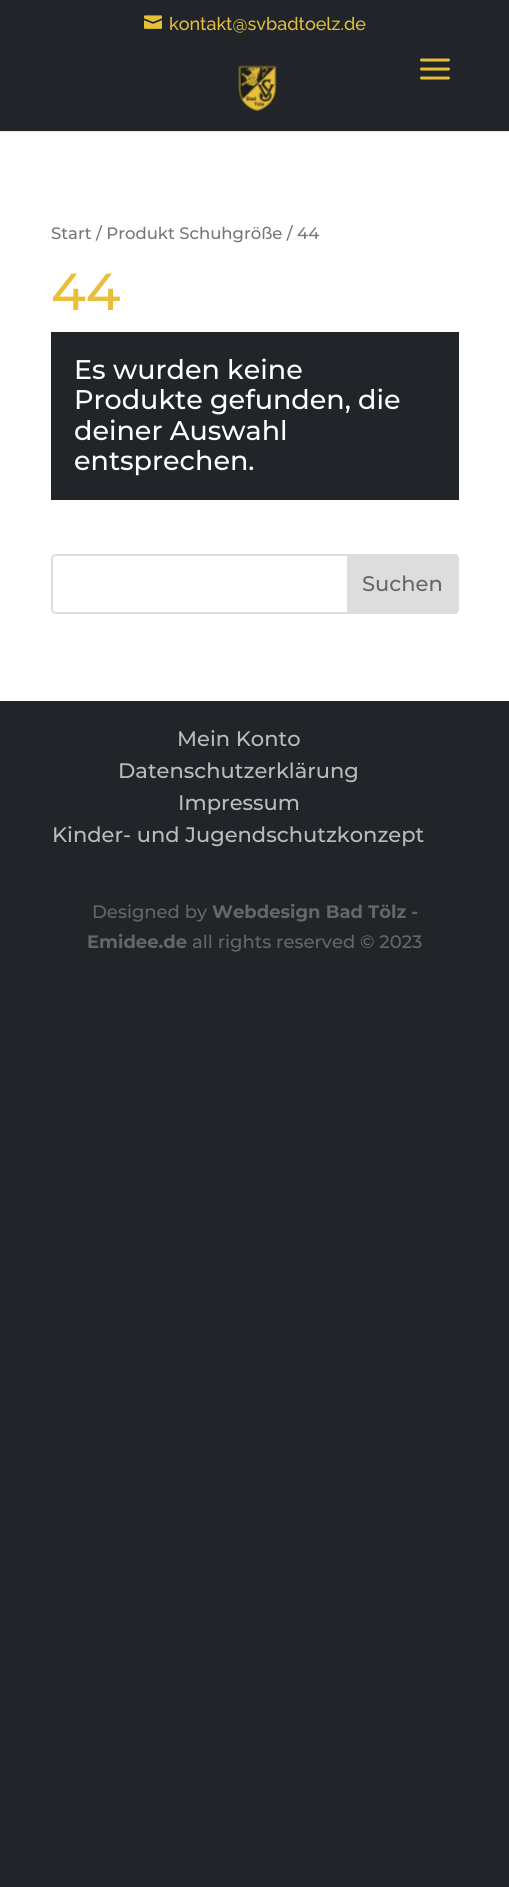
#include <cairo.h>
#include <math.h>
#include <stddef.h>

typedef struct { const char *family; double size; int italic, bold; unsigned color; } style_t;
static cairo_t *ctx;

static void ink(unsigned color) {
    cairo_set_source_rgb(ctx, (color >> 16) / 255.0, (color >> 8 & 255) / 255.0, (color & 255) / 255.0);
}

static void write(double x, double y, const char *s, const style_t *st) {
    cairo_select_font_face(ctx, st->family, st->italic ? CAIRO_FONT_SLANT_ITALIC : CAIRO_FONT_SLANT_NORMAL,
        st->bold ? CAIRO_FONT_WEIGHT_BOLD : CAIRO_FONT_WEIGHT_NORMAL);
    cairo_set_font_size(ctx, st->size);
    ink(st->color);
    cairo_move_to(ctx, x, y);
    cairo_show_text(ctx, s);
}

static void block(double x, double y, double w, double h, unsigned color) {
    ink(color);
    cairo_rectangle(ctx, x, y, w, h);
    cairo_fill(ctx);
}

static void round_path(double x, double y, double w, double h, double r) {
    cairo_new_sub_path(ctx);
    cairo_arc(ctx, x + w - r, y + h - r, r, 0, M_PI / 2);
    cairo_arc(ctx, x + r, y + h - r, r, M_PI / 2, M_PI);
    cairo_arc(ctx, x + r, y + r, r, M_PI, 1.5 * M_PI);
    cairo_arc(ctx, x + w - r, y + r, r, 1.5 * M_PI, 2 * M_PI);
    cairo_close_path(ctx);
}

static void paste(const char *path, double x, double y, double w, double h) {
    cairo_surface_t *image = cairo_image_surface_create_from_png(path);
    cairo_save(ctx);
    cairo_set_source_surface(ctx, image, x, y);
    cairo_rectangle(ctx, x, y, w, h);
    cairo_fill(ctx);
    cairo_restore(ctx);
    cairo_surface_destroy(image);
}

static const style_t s1 = {"Raleway Medium", 18, 0, 0, 0xe7bf3b};
static const style_t s2 = {"Montserrat Medium", 16.5, 0, 0, 0x767676};
static const style_t s3 = {"Montserrat Medium", 52, 0, 0, 0xe7bf3b};
static const style_t s4 = {"Montserrat Medium", 27, 0, 0, 0xffffff};
static const style_t s5 = {"Montserrat Medium", 21, 0, 0, 0x666666};
static const style_t s6 = {"Montserrat Medium", 21, 0, 0, 0xbbbbbb};
static const style_t s7 = {"Montserrat Medium", 18, 0, 0, 0x666666};
static const style_t s8 = {"Montserrat", 18, 0, 1, 0x666666};

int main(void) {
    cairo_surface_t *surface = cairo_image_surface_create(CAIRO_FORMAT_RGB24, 509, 1887);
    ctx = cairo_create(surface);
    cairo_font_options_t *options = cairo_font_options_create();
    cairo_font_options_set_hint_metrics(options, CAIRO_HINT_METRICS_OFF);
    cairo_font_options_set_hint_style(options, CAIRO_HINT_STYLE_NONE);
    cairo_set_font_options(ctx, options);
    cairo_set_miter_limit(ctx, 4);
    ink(0x212429);
    cairo_paint(ctx);
    paste("pic1.png", 144, 15, 18, 14);
    write(169, 30, "kontakt@svbadtoelz.de", &s1);
    paste("pic2.png", 238, 65, 39, 47);
    paste("pic3.png", 420, 58, 30, 22);
    block(0, 132, 509, 569, 0xffffff);
    block(0, 131, 509, 1, 0xe6e6e6);
    write(51, 239, "Start / Produkt Schuhgröße / 44", &s2);
    write(51, 310, "44", &s3);
    block(51, 332, 408, 168, 0x212429);
    write(74, 379, "Es wurden keine", &s4);
    write(74, 409, "Produkte gefunden, die", &s4);
    write(74, 440, "deiner Auswahl", &s4);
    write(74, 470, "entsprechen.", &s4);
    round_path(52, 555, 406, 58, 4);
    ink(0xdddddd);
    cairo_stroke(ctx);
    cairo_new_path(ctx);
    cairo_move_to(ctx, 348, 555);
    cairo_line_to(ctx, 454, 555);
    cairo_curve_to(ctx, 456, 555, 458, 557, 458, 559);
    cairo_line_to(ctx, 458, 609);
    cairo_curve_to(ctx, 458, 611, 456, 613, 454, 613);
    cairo_line_to(ctx, 348, 613);
    cairo_close_path(ctx);
    cairo_fill_preserve(ctx);
    cairo_stroke(ctx);
    write(362, 591, "Suchen", &s5);
    write(177, 746, "Mein Konto", &s6);
    write(118, 778, "Datenschutzerklärung", &s6);
    write(178, 810, "Impressum", &s6);
    write(52, 842, "Kinder- und Jugendschutzkonzept", &s6);
    write(92, 918, "Designed by", &s7);
    write(212, 918, "Webdesign Bad Tölz -", &s8);
    write(87, 948, "Emidee.de", &s8);
    write(192, 948, "all rights reserved © 2023", &s7);
    cairo_surface_write_to_png(surface, "screenshot.png");
    cairo_font_options_destroy(options);
    cairo_destroy(ctx);
    cairo_surface_destroy(surface);
    return 0;
}
